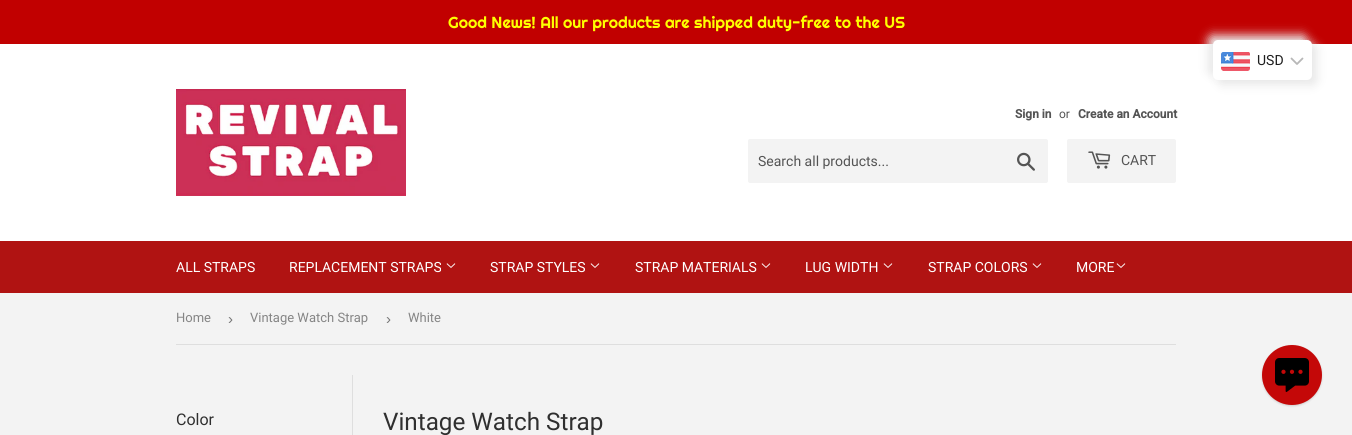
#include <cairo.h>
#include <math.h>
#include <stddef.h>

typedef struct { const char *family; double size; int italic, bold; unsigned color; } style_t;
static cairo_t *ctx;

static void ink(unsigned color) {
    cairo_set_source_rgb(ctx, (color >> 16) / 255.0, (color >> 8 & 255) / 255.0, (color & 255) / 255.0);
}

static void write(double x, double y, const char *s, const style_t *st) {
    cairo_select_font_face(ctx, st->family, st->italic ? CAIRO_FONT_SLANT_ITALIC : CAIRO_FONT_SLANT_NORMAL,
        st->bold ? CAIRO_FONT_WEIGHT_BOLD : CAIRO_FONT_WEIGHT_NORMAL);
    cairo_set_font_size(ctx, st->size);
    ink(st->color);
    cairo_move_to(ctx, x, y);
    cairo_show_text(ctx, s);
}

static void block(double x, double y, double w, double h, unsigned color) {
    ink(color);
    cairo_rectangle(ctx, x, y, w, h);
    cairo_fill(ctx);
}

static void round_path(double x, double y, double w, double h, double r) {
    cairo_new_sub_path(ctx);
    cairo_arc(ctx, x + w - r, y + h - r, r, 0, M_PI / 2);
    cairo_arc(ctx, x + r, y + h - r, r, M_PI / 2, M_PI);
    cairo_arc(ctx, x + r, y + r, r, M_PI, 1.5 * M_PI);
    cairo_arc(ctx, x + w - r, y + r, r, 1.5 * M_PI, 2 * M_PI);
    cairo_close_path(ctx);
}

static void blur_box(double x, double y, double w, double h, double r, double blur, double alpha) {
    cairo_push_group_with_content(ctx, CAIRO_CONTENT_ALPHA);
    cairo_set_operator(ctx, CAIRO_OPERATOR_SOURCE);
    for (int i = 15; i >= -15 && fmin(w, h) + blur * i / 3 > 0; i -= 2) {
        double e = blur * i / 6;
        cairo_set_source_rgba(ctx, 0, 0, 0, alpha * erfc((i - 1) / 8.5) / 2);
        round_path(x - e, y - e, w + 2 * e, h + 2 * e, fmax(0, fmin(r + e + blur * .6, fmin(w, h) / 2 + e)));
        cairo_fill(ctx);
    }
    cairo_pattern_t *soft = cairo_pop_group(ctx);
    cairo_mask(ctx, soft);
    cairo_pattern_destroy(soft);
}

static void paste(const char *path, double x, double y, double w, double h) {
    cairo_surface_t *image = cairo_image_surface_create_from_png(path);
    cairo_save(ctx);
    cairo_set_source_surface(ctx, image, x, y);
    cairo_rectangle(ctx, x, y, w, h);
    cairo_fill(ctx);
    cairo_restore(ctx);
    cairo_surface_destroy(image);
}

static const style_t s1 = {"Righteous", 16, 0, 0, 0xfeff00};
static const style_t s2 = {"Roboto", 12, 0, 1, 0x545454};
static const style_t s3 = {"Roboto", 12, 0, 0, 0x545454};
static const style_t s4 = {"Roboto", 14, 0, 0, 0x545454};
static const style_t s5 = {"Roboto", 14, 0, 0, 0xffffff};
static const style_t s6 = {"Roboto", 14, 0, 0, 0x1e1e1e};
static const style_t s7 = {"Roboto", 13, 0, 0, 0x858585};
static const style_t s8 = {"Liberation Sans", 15, 0, 0, 0x767676};
static const style_t s9 = {"Roboto", 16, 0, 0, 0x2f2f2f};
static const style_t s10 = {"Roboto", 24.25, 0, 0, 0x2f2f2f};

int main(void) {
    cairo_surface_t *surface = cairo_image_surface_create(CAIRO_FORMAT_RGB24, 1352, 435);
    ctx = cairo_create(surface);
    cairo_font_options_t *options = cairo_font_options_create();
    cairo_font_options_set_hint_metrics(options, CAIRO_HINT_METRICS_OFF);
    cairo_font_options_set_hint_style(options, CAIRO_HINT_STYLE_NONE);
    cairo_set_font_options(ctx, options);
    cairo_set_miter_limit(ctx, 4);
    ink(0xf3f3f3);
    cairo_paint(ctx);
    block(0, 0, 1352, 44, 0xc10000);
    write(448, 28, "Good News! All our products are shipped duty-free to the US", &s1);
    block(0, 44, 1352, 197, 0xffffff);
    paste("pic1.png", 176, 89, 230, 107);
    write(1015, 118, "Sign in", &s2);
    write(1059, 118, "or", &s3);
    write(1078, 118, "Create an Account", &s2);
    ink(0xf3f3f3);
    round_path(748, 139, 300, 44, 2);
    cairo_fill(ctx);
    write(758, 166, "Search all products...", &s4);
    paste("pic2.png", 1017, 152, 18, 19);
    ink(0xf3f3f3);
    round_path(1067, 139, 109, 44, 2);
    cairo_fill(ctx);
    paste("pic3.png", 1088, 151, 23, 18);
    write(1121, 165, "CART", &s4);
    block(0, 241, 1352, 52, 0xb01312);
    write(176, 272, "ALL STRAPS", &s5);
    write(289, 272, "REPLACEMENT STRAPS", &s5);
    paste("pic4.png", 446, 263, 10, 5);
    write(490, 272, "STRAP STYLES", &s5);
    paste("pic4.png", 590, 263, 10, 5);
    write(635, 272, "STRAP MATERIALS", &s5);
    paste("pic4.png", 761, 263, 10, 5);
    write(805, 272, "LUG WIDTH", &s5);
    paste("pic4.png", 883, 263, 10, 5);
    write(928, 272, "STRAP COLORS", &s5);
    paste("pic4.png", 1032, 263, 10, 5);
    write(1076, 272, "MORE", &s5);
    paste("pic4.png", 1116, 263, 10, 5);
    ink(0xe8e8e8);
    blur_box(1208, 35, 99, 40, 5, 5, 1);
    blur_box(1218, 45, 99, 40, 5, 5, 1);
    ink(0xffffff);
    round_path(1213, 40, 99, 40, 5);
    cairo_fill(ctx);
    paste("pic5.png", 1221, 52, 29, 19);
    write(1257, 65, "USD", &s6);
    cairo_new_path(ctx);
    cairo_move_to(ctx, 1291.5, 58.5);
    cairo_line_to(ctx, 1297, 64);
    cairo_line_to(ctx, 1302.5, 58.5);
    ink(0xb7b7b7);
    cairo_set_line_width(ctx, 1.8);
    cairo_set_line_cap(ctx, CAIRO_LINE_CAP_ROUND);
    cairo_set_line_join(ctx, CAIRO_LINE_JOIN_ROUND);
    cairo_stroke(ctx);
    block(176, 344, 1000, 1, 0xdedede);
    write(176, 322, "Home", &s7);
    write(228, 324, "›", &s8);
    write(250, 322, "Vintage Watch Strap", &s7);
    write(386, 324, "›", &s8);
    write(408, 322, "White", &s7);
    write(176, 425, "Color", &s9);
    block(352, 375, 1, 60, 0xdedede);
    write(383, 430, "Vintage Watch Strap", &s10);
    ink(0x000000);
    blur_box(1262, 346, 60, 60, 30, 1, 0.15);
    ink(0xc40808);
    cairo_arc(ctx, 1292, 375, 30, 0, 2 * M_PI);
    cairo_fill(ctx);
    paste("pic6.png", 1275, 358, 34, 34);
    cairo_surface_write_to_png(surface, "screenshot.png");
    cairo_font_options_destroy(options);
    cairo_destroy(ctx);
    cairo_surface_destroy(surface);
    return 0;
}
